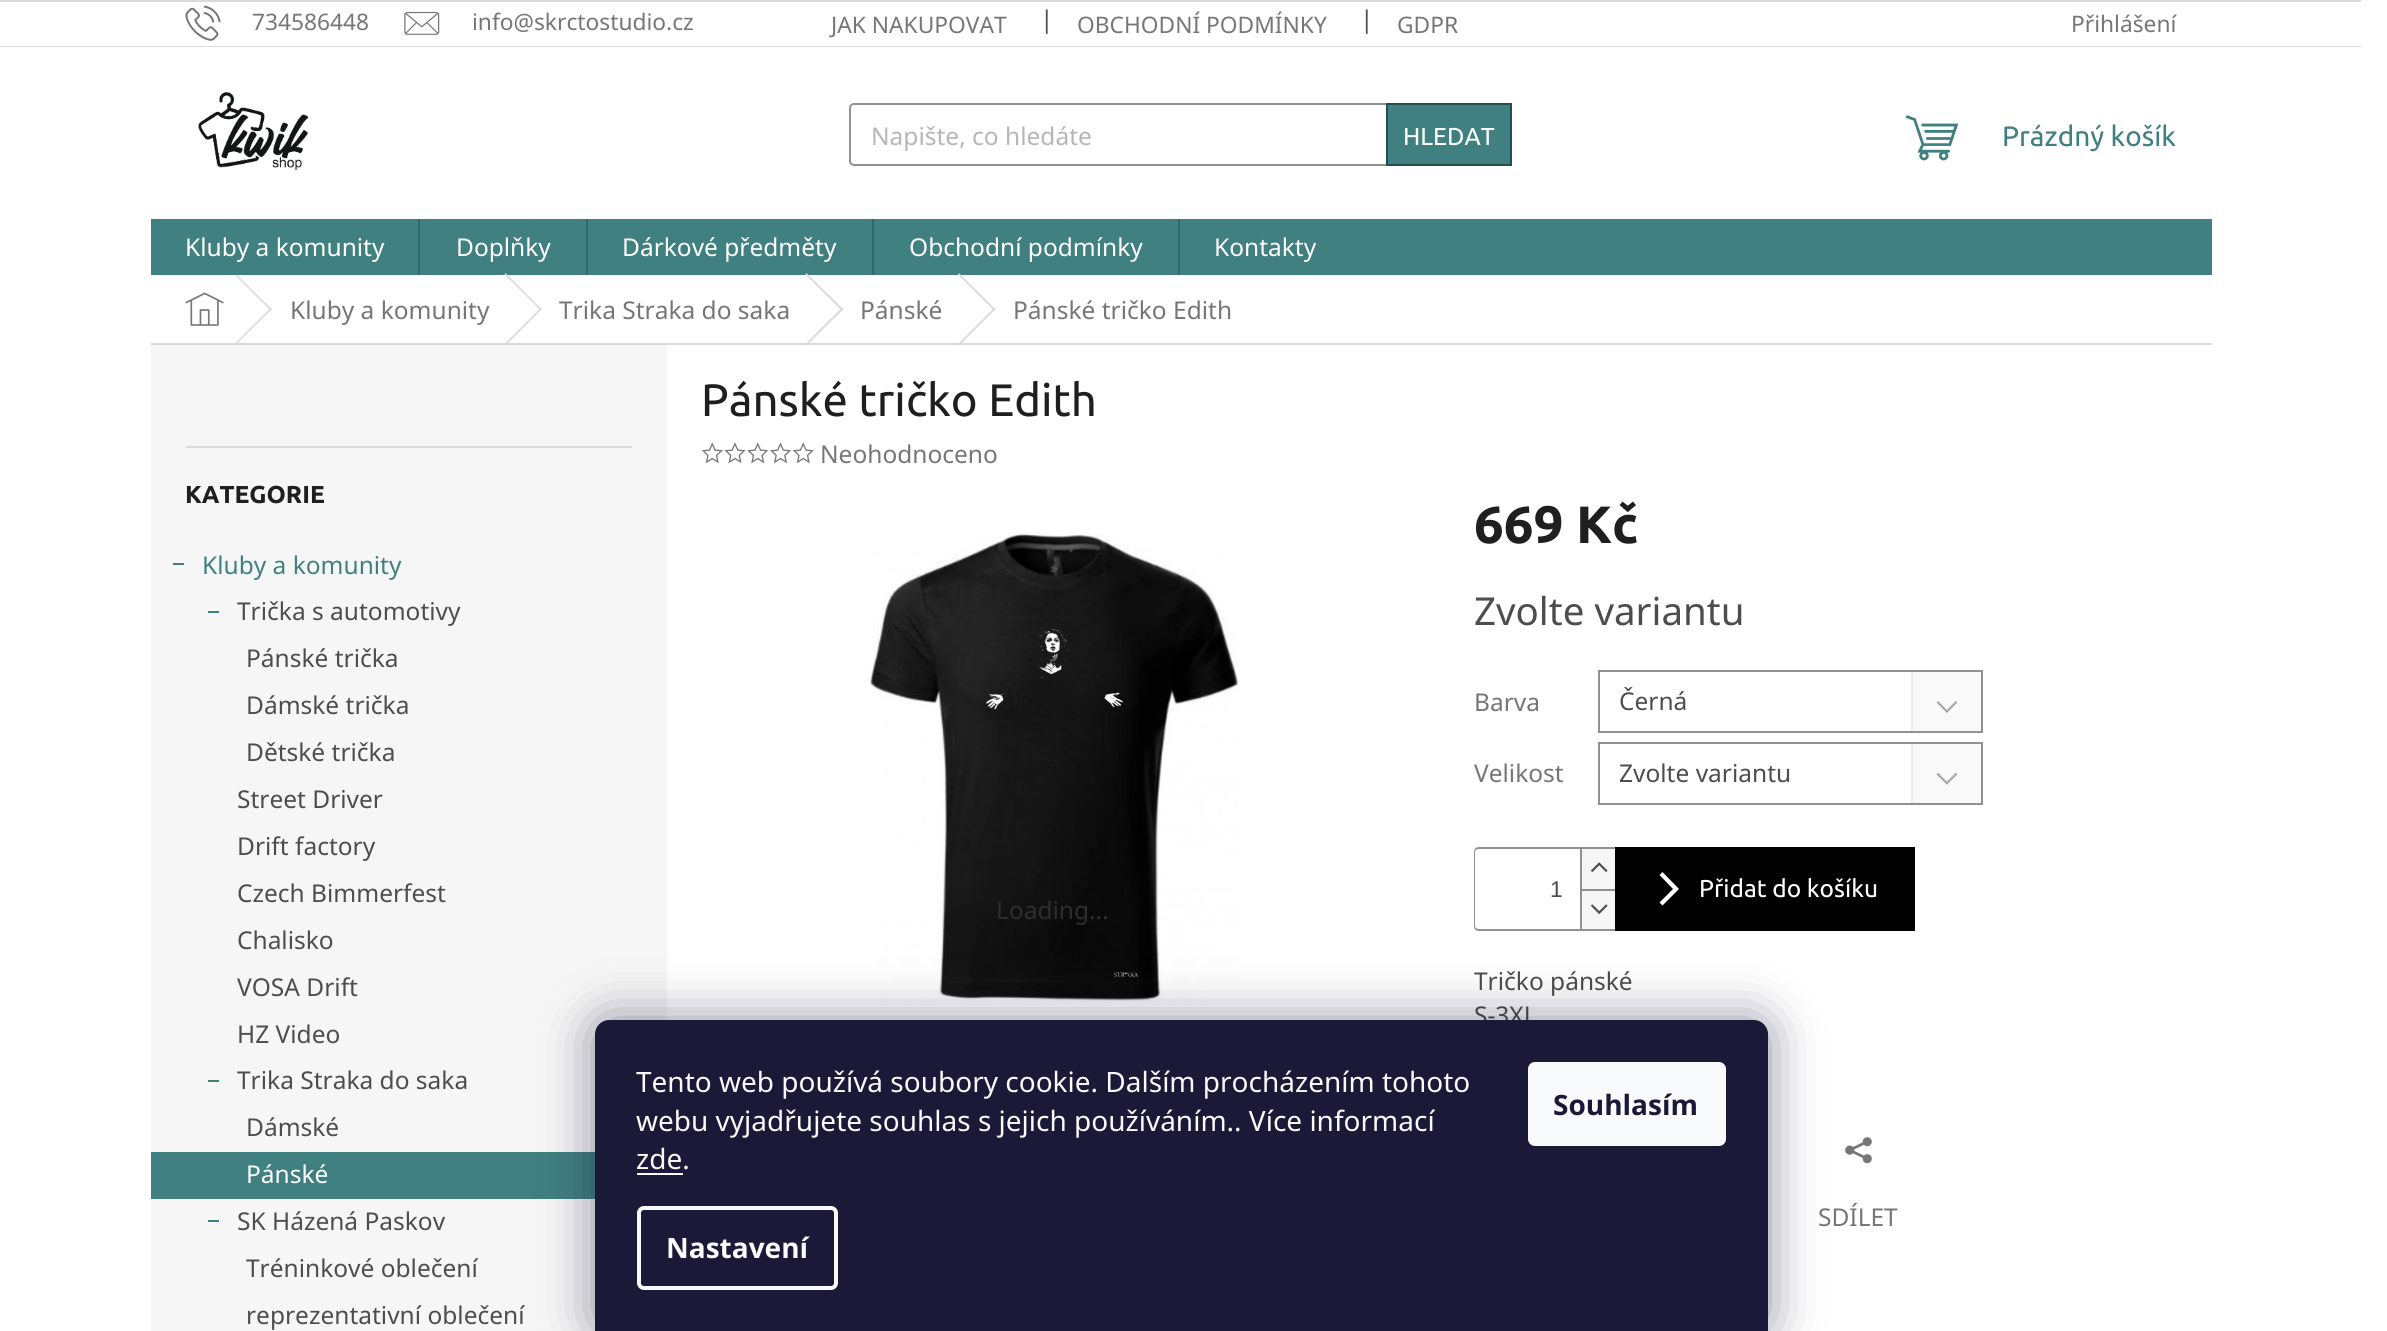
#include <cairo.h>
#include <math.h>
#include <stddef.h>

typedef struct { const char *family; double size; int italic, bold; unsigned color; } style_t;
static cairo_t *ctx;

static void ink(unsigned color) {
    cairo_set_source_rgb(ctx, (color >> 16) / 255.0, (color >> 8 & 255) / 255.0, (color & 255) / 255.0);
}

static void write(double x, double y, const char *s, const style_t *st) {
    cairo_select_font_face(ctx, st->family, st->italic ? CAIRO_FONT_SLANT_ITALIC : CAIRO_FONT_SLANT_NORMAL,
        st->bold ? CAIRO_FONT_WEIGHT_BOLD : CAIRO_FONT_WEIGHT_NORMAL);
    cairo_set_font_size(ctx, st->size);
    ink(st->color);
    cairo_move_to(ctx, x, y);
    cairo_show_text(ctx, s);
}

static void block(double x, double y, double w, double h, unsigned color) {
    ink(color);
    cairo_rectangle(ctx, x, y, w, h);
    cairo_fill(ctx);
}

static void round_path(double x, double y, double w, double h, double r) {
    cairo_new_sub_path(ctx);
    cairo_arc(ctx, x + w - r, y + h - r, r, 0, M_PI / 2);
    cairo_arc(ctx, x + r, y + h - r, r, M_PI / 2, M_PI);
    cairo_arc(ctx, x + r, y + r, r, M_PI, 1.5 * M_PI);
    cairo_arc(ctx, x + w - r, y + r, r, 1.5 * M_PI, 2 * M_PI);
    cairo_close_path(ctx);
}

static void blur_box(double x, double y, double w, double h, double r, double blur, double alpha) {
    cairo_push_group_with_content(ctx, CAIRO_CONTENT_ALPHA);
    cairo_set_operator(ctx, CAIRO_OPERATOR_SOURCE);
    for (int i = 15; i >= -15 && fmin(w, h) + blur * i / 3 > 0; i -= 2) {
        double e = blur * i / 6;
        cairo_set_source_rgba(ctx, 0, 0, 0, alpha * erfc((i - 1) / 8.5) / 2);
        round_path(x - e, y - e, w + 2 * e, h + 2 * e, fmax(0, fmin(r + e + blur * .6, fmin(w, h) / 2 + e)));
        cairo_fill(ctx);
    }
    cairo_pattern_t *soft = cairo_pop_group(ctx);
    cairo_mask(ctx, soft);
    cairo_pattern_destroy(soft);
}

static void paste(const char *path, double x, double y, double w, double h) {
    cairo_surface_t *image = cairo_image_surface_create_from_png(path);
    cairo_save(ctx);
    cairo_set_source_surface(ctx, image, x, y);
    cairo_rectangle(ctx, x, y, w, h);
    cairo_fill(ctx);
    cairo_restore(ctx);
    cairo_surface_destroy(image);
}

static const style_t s1 = {"Noto Sans", 22.75, 0, 0, 0x767676};
static const style_t s2 = {"Noto Sans", 24.5, 0, 0, 0x4d4d4d};
static const style_t s3 = {"Noto Sans", 24.5, 0, 0, 0xb6b6b6};
static const style_t s4 = {"Ubuntu", 24.5, 0, 0, 0xffffff};
static const style_t s5 = {"Ubuntu", 28, 0, 0, 0x408080};
static const style_t s6 = {"Noto Sans", 24.5, 0, 0, 0xffffff};
static const style_t s7 = {"Noto Sans", 24.5, 0, 0, 0x767676};
static const style_t s8 = {"Ubuntu", 24.5, 0, 1, 0x1f1f1f};
static const style_t s9 = {"Noto Sans", 24.5, 0, 0, 0x408080};
static const style_t s10 = {"Ubuntu", 45.5, 0, 0, 0x1f1f1f};
static const style_t s11 = {"Noto Sans", 24.5, 0, 0, 0x2e2e2e};
static const style_t s12 = {"Ubuntu", 52.5, 0, 1, 0x1f1f1f};
static const style_t s13 = {"Noto Sans", 38.5, 0, 0, 0x4d4d4d};
static const style_t s14 = {"Liberation Sans", 22.75, 0, 0, 0x4d4d4d};
static const style_t s15 = {"Noto Sans", 28, 0, 0, 0xf8fafb};
static const style_t s16 = {"Noto Sans", 28, 0, 1, 0xf8fafb};
static const style_t s17 = {"Noto Sans", 28, 0, 1, 0x1a1937};

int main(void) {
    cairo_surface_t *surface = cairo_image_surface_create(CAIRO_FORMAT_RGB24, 2387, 1331);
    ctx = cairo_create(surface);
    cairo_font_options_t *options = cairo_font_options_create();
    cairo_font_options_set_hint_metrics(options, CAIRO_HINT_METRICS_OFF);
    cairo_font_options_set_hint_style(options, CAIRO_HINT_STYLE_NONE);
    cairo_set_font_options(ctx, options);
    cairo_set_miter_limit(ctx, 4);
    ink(0xffffff);
    cairo_paint(ctx);
    block(0, 0, 2361, 2, 0xdadada);
    block(0, 46, 2361, 1, 0xdadada);
    paste("pic1.png", 185, 5, 36, 36);
    write(252, 30, "734586448", &s1);
    paste("pic2.png", 404, 11, 36, 24);
    write(472, 30, "info@skrctostudio.cz", &s1);
    write(831, 33, "JAK NAKUPOVAT", &s1);
    write(1040, 28, "|", &s2);
    write(1077, 33, "OBCHODNÍ PODMÍNKY", &s1);
    write(1360, 28, "|", &s2);
    write(1397, 33, "GDPR", &s1);
    write(2071, 32, "Přihlášení", &s1);
    paste("pic3.png", 198, 91, 111, 79);
    round_path(850, 104, 661, 61, 4);
    ink(0x919191);
    cairo_stroke(ctx);
    write(871, 145, "Napište, co hledáte", &s3);
    ink(0x408080);
    cairo_rectangle(ctx, 1387, 104, 124, 61);
    cairo_fill_preserve(ctx);
    ink(0x274e4e);
    cairo_stroke(ctx);
    write(1403, 145, "HLEDAT", &s4);
    paste("pic4.png", 1905, 115, 54, 46);
    write(2002, 146, "Prázdný košík", &s5);
    block(151, 219, 2061, 56, 0x408080);
    write(185, 256, "Kluby a komunity", &s6);
    block(418, 219, 2, 56, 0x356969);
    write(456, 256, "Doplňky", &s6);
    block(586, 219, 2, 56, 0x356969);
    write(622, 256, "Dárkové předměty", &s6);
    block(872, 219, 2, 56, 0x356969);
    write(909, 256, "Obchodní podmínky", &s6);
    block(1178, 219, 2, 56, 0x356969);
    write(1214, 256, "Kontakty", &s6);
    block(151, 343, 2061, 2, 0xdadada);
    paste("pic5.png", 185, 292, 39, 34);
    cairo_new_path(ctx);
    cairo_move_to(ctx, 235.5, 275.5);
    cairo_line_to(ctx, 236.5, 274.5);
    cairo_line_to(ctx, 272, 309.5);
    cairo_line_to(ctx, 271, 311);
    cairo_close_path(ctx);
    cairo_fill(ctx);
    cairo_new_path(ctx);
    cairo_move_to(ctx, 271, 307.5);
    cairo_line_to(ctx, 272, 309);
    cairo_line_to(ctx, 236.5, 344);
    cairo_line_to(ctx, 235.5, 343);
    cairo_close_path(ctx);
    cairo_fill(ctx);
    write(290, 319, "Kluby a komunity", &s7);
    ink(0xdadada);
    cairo_new_path(ctx);
    cairo_move_to(ctx, 504.5, 274.5);
    cairo_line_to(ctx, 505.5, 273);
    cairo_line_to(ctx, 542, 309.5);
    cairo_line_to(ctx, 541, 311);
    cairo_close_path(ctx);
    cairo_fill(ctx);
    block(151, 345, 516, 986, 0xf6f6f6);
    ink(0xdadada);
    cairo_new_path(ctx);
    cairo_move_to(ctx, 541, 307.5);
    cairo_line_to(ctx, 542, 309);
    cairo_line_to(ctx, 505.5, 345.5);
    cairo_line_to(ctx, 504.5, 344);
    cairo_close_path(ctx);
    cairo_fill(ctx);
    write(559, 319, "Trika Straka do saka", &s7);
    ink(0xdadada);
    cairo_new_path(ctx);
    cairo_move_to(ctx, 805.5, 274.5);
    cairo_line_to(ctx, 806.5, 273);
    cairo_line_to(ctx, 843.5, 309.5);
    cairo_line_to(ctx, 842, 311);
    cairo_close_path(ctx);
    cairo_fill(ctx);
    cairo_new_path(ctx);
    cairo_move_to(ctx, 842, 307.5);
    cairo_line_to(ctx, 843.5, 309);
    cairo_line_to(ctx, 806.5, 345.5);
    cairo_line_to(ctx, 805.5, 344);
    cairo_close_path(ctx);
    cairo_fill(ctx);
    write(860, 319, "Pánské", &s7);
    ink(0xdadada);
    cairo_new_path(ctx);
    cairo_move_to(ctx, 958, 274.5);
    cairo_line_to(ctx, 959, 273);
    cairo_line_to(ctx, 995.5, 309.5);
    cairo_line_to(ctx, 994.5, 311);
    cairo_close_path(ctx);
    cairo_fill(ctx);
    cairo_new_path(ctx);
    cairo_move_to(ctx, 994.5, 307.5);
    cairo_line_to(ctx, 995.5, 309);
    cairo_line_to(ctx, 959, 345.5);
    cairo_line_to(ctx, 958, 344);
    cairo_close_path(ctx);
    cairo_fill(ctx);
    write(1013, 319, "Pánské tričko Edith", &s7);
    block(186, 446, 446, 2, 0xdadada);
    write(185, 503, "KATEGORIE", &s8);
    block(173, 563, 11, 2, 0x408080);
    write(202, 574, "Kluby a komunity", &s9);
    block(208, 611, 11, 2, 0x408080);
    write(237, 620, "Trička s automotivy", &s2);
    write(246, 667, "Pánské trička", &s2);
    write(246, 714, "Dámské trička", &s2);
    write(246, 761, "Dětské trička", &s2);
    write(237, 808, "Street Driver", &s2);
    write(237, 855, "Drift factory", &s2);
    write(237, 902, "Czech Bimmerfest", &s2);
    write(237, 949, "Chalisko", &s2);
    write(237, 996, "VOSA Drift", &s2);
    write(237, 1043, "HZ Video", &s2);
    block(208, 1080, 11, 2, 0x408080);
    write(237, 1089, "Trika Straka do saka", &s2);
    write(246, 1136, "Dámské", &s2);
    block(151, 1152, 444, 47, 0x408080);
    write(246, 1183, "Pánské", &s6);
    block(208, 1220, 11, 2, 0x408080);
    write(237, 1230, "SK Házená Paskov", &s2);
    write(246, 1277, "Tréninkové oblečení", &s2);
    write(246, 1324, "reprezentativní oblečení", &s2);
    write(701, 416, "Pánské tričko Edith", &s10);
    paste("pic6.png", 702, 442, 21, 22);
    paste("pic7.png", 724, 442, 22, 22);
    paste("pic8.png", 747, 442, 21, 22);
    paste("pic9.png", 770, 442, 21, 22);
    paste("pic6.png", 793, 442, 21, 22);
    write(820, 463, "Neohodnoceno", &s7);
    paste("pic10.png", 868, 533, 371, 470);
    write(996, 919, "Loading...", &s11);
    write(1474, 543, "669 Kč", &s12);
    write(1474, 625, "Zvolte variantu", &s13);
    write(1474, 711, "Barva", &s7);
    paste("pic11.png", 1911, 672, 70, 62);
    cairo_rectangle(ctx, 1599, 671, 383, 61);
    ink(0x919191);
    cairo_stroke(ctx);
    write(1619, 710, "Černá", &s2);
    write(1474, 782, "Velikost", &s7);
    paste("pic12.png", 1911, 744, 70, 59);
    cairo_rectangle(ctx, 1599, 743, 383, 61);
    ink(0x919191);
    cairo_stroke(ctx);
    write(1619, 782, "Zvolte variantu", &s2);
    ink(0x919191);
    cairo_set_fill_rule(ctx, CAIRO_FILL_RULE_EVEN_ODD);
    cairo_new_path(ctx);
    cairo_move_to(ctx, 1479, 847);
    cairo_line_to(ctx, 1615, 847);
    cairo_line_to(ctx, 1615, 931);
    cairo_line_to(ctx, 1479, 931);
    cairo_curve_to(ctx, 1476, 931, 1474, 929, 1474, 926);
    cairo_line_to(ctx, 1474, 852);
    cairo_curve_to(ctx, 1474, 849, 1476, 847, 1479, 847);
    cairo_close_path(ctx);
    cairo_move_to(ctx, 1479, 849);
    cairo_line_to(ctx, 1615, 849);
    cairo_line_to(ctx, 1615, 929);
    cairo_line_to(ctx, 1479, 929);
    cairo_curve_to(ctx, 1477, 929, 1475, 928, 1475, 926);
    cairo_line_to(ctx, 1475, 852);
    cairo_curve_to(ctx, 1475, 850, 1477, 849, 1479, 849);
    cairo_close_path(ctx);
    cairo_fill(ctx);
    write(1550, 897, "1", &s14);
    block(1582, 849, 33, 40, 0xf6f6f6);
    block(1580, 849, 2, 40, 0x919191);
    paste("pic13.png", 1590, 862, 18, 11);
    block(1582, 891, 33, 38, 0xf6f6f6);
    block(1580, 889, 35, 2, 0x919191);
    block(1580, 889, 2, 40, 0x919191);
    paste("pic14.png", 1590, 904, 18, 11);
    block(1615, 847, 300, 84, 0x000000);
    ink(0xffffff);
    cairo_set_fill_rule(ctx, CAIRO_FILL_RULE_WINDING);
    cairo_new_path(ctx);
    cairo_move_to(ctx, 1662.5, 905.5);
    cairo_line_to(ctx, 1659.5, 902.5);
    cairo_line_to(ctx, 1673, 889);
    cairo_line_to(ctx, 1659.5, 875);
    cairo_line_to(ctx, 1662.5, 872);
    cairo_line_to(ctx, 1679, 889);
    cairo_close_path(ctx);
    cairo_fill(ctx);
    write(1699, 897, "Přidat do košíku", &s4);
    write(1474, 990, "Tričko pánské", &s2);
    write(1474, 1024, "S-3XL", &s2);
    paste("pic15.png", 1845, 1137, 27, 27);
    write(1818, 1226, "SDÍLET", &s7);
    ink(0x1b1939);
    blur_box(595, 1020, 1173, 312, 14, 26, 0.5);
    ink(0x1a1937);
    cairo_new_path(ctx);
    cairo_move_to(ctx, 609, 1020);
    cairo_line_to(ctx, 1754, 1020);
    cairo_curve_to(ctx, 1761.5, 1020, 1768, 1026.5, 1768, 1034);
    cairo_line_to(ctx, 1768, 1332);
    cairo_line_to(ctx, 595, 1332);
    cairo_line_to(ctx, 595, 1034);
    cairo_curve_to(ctx, 595, 1026.5, 601.5, 1020, 609, 1020);
    cairo_close_path(ctx);
    cairo_fill(ctx);
    write(636, 1092, "Tento web používá soubory cookie. Dalším procházením tohoto", &s15);
    write(636, 1131, "webu vyjadřujete souhlas s jejich používáním.. Více informací", &s15);
    write(636, 1169, "zde.", &s15);
    block(637, 1173, 46, 2, 0xf8fafb);
    round_path(639, 1208, 197, 80, 5);
    cairo_set_line_width(ctx, 4);
    cairo_stroke(ctx);
    write(666, 1258, "Nastavení", &s16);
    round_path(1528, 1062, 198, 84, 7);
    cairo_fill(ctx);
    write(1553, 1115, "Souhlasím", &s17);
    cairo_surface_write_to_png(surface, "screenshot.png");
    cairo_font_options_destroy(options);
    cairo_destroy(ctx);
    cairo_surface_destroy(surface);
    return 0;
}
